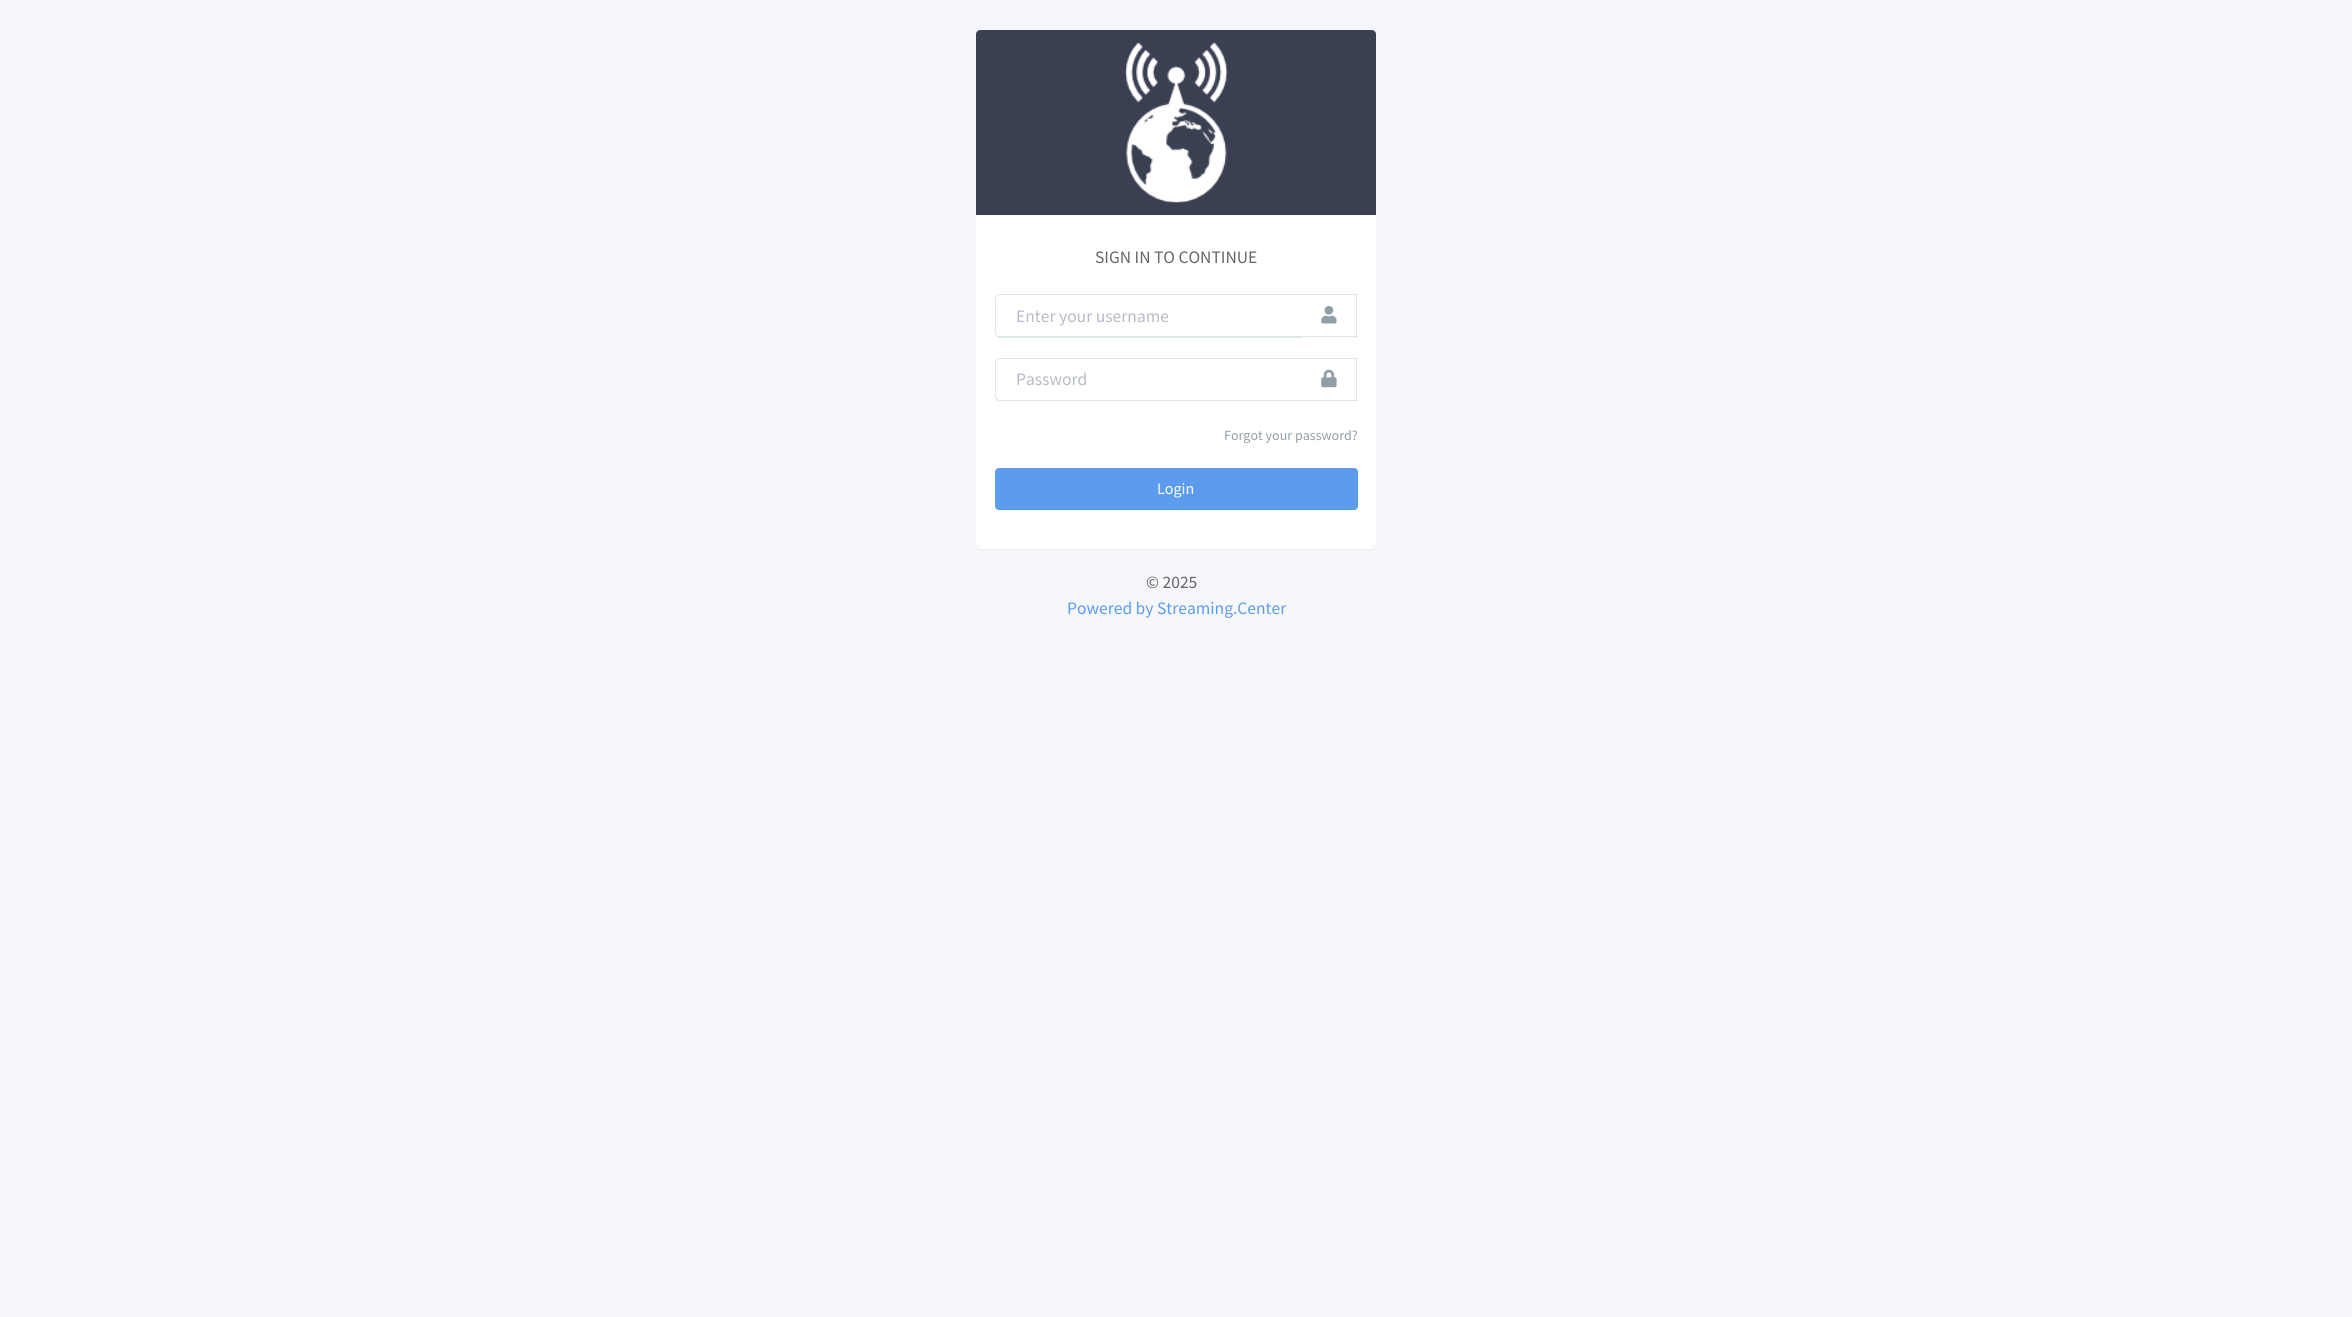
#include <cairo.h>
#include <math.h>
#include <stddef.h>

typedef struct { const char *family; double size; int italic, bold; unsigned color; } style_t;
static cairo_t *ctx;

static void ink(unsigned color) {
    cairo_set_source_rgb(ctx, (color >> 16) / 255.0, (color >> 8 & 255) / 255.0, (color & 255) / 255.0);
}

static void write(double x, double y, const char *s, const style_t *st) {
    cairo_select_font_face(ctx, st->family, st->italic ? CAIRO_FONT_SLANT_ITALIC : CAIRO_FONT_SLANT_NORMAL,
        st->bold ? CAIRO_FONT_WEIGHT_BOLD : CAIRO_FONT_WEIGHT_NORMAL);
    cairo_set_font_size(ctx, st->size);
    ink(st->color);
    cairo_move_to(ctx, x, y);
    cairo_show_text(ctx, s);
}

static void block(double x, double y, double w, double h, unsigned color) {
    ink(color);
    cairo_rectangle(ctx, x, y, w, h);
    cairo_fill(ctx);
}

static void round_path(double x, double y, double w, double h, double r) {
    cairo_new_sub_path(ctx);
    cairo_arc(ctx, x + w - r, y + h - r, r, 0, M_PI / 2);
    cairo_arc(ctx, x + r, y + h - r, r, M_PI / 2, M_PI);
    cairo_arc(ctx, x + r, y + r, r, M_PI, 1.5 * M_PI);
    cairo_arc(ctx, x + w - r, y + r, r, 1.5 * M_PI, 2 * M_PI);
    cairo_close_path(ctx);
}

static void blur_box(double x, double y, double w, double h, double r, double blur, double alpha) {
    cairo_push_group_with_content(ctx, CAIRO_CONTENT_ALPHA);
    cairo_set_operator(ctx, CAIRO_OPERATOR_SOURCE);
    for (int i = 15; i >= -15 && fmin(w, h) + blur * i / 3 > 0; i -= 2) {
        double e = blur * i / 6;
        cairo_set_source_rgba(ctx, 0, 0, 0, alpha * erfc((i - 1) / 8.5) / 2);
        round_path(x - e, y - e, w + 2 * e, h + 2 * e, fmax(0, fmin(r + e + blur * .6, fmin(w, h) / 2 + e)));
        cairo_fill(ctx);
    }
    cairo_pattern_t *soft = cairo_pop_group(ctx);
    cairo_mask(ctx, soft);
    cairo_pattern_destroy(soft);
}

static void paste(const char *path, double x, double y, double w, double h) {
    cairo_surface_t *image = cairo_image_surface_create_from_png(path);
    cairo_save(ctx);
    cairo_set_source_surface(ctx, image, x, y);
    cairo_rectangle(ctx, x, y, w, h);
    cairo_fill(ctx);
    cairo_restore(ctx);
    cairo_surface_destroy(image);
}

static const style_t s1 = {"Source Sans Pro", 17.5, 0, 0, 0x656565};
static const style_t s2 = {"Source Sans Pro", 17.5, 0, 0, 0xb7bac9};
static const style_t s3 = {"Source Sans Pro", 14, 0, 0, 0x909fa7};
static const style_t s4 = {"Source Sans Pro", 16, 0, 0, 0xffffff};
static const style_t s5 = {"Source Sans Pro", 17.5, 0, 0, 0x5d9cec};

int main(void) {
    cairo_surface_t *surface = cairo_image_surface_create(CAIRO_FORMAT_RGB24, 2352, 1317);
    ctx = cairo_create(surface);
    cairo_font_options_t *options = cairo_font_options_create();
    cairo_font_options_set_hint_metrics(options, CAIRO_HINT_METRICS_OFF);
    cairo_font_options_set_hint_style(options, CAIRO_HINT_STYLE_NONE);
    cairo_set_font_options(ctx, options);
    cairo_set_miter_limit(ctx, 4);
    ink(0xf5f7fa);
    cairo_paint(ctx);
    ink(0x000000);
    blur_box(976, 31, 400, 519, 5, 0.5, 0.05);
    ink(0xffffff);
    round_path(976, 30, 400, 519, 5);
    cairo_fill(ctx);
    ink(0x3a3f51);
    cairo_new_path(ctx);
    cairo_move_to(ctx, 980, 30);
    cairo_line_to(ctx, 1372, 30);
    cairo_curve_to(ctx, 1374, 30, 1376, 32, 1376, 34);
    cairo_line_to(ctx, 1376, 215);
    cairo_line_to(ctx, 976, 215);
    cairo_line_to(ctx, 976, 34);
    cairo_curve_to(ctx, 976, 32, 978, 30, 980, 30);
    cairo_close_path(ctx);
    cairo_fill(ctx);
    paste("pic1.png", 1125, 42, 103, 161);
    write(1095, 263, "SIGN IN TO CONTINUE", &s1);
    block(1301, 294, 57, 1, 0xdde6e9);
    block(1356, 294, 1, 44, 0xdde6e9);
    block(1301, 336, 57, 1, 0xdde6e9);
    cairo_set_fill_rule(ctx, CAIRO_FILL_RULE_EVEN_ODD);
    cairo_new_path(ctx);
    cairo_move_to(ctx, 1000, 294);
    cairo_line_to(ctx, 1302, 294);
    cairo_line_to(ctx, 1302, 338);
    cairo_line_to(ctx, 1000, 338);
    cairo_curve_to(ctx, 997, 338, 995, 335, 995, 332);
    cairo_line_to(ctx, 995, 299);
    cairo_curve_to(ctx, 995, 296, 997, 294, 1000, 294);
    cairo_close_path(ctx);
    cairo_move_to(ctx, 1000, 295);
    cairo_line_to(ctx, 1302, 295);
    cairo_line_to(ctx, 1302, 336);
    cairo_line_to(ctx, 1000, 336);
    cairo_curve_to(ctx, 998, 336, 996, 335, 996, 332);
    cairo_line_to(ctx, 996, 299);
    cairo_curve_to(ctx, 996, 297, 998, 295, 1000, 295);
    cairo_close_path(ctx);
    cairo_fill(ctx);
    write(1016, 322, "Enter your username", &s2);
    paste("pic2.png", 1321, 306, 16, 18);
    block(1301, 358, 57, 1, 0xdde6e9);
    block(1356, 358, 1, 43, 0xdde6e9);
    block(1301, 400, 57, 1, 0xdde6e9);
    cairo_new_path(ctx);
    cairo_move_to(ctx, 1000, 358);
    cairo_line_to(ctx, 1302, 358);
    cairo_line_to(ctx, 1302, 401);
    cairo_line_to(ctx, 1000, 401);
    cairo_curve_to(ctx, 997, 401, 995, 399, 995, 396);
    cairo_line_to(ctx, 995, 362);
    cairo_curve_to(ctx, 995, 360, 997, 358, 1000, 358);
    cairo_close_path(ctx);
    cairo_move_to(ctx, 1000, 359);
    cairo_line_to(ctx, 1302, 359);
    cairo_line_to(ctx, 1302, 400);
    cairo_line_to(ctx, 1000, 400);
    cairo_curve_to(ctx, 998, 400, 996, 398, 996, 396);
    cairo_line_to(ctx, 996, 362);
    cairo_curve_to(ctx, 996, 360, 998, 359, 1000, 359);
    cairo_close_path(ctx);
    cairo_fill(ctx);
    write(1016, 385, "Password", &s2);
    paste("pic3.png", 1321, 369, 16, 19);
    write(1224, 440, "Forgot your password?", &s3);
    ink(0x5d9cec);
    round_path(995.5, 468.5, 362, 41, 3.5);
    cairo_fill_preserve(ctx);
    cairo_set_line_width(ctx, 1);
    cairo_stroke(ctx);
    write(1157, 494, "Login", &s4);
    write(1146, 588, "© 2025", &s1);
    write(1067, 614, "Powered by Streaming.Center", &s5);
    cairo_surface_write_to_png(surface, "screenshot.png");
    cairo_font_options_destroy(options);
    cairo_destroy(ctx);
    cairo_surface_destroy(surface);
    return 0;
}
